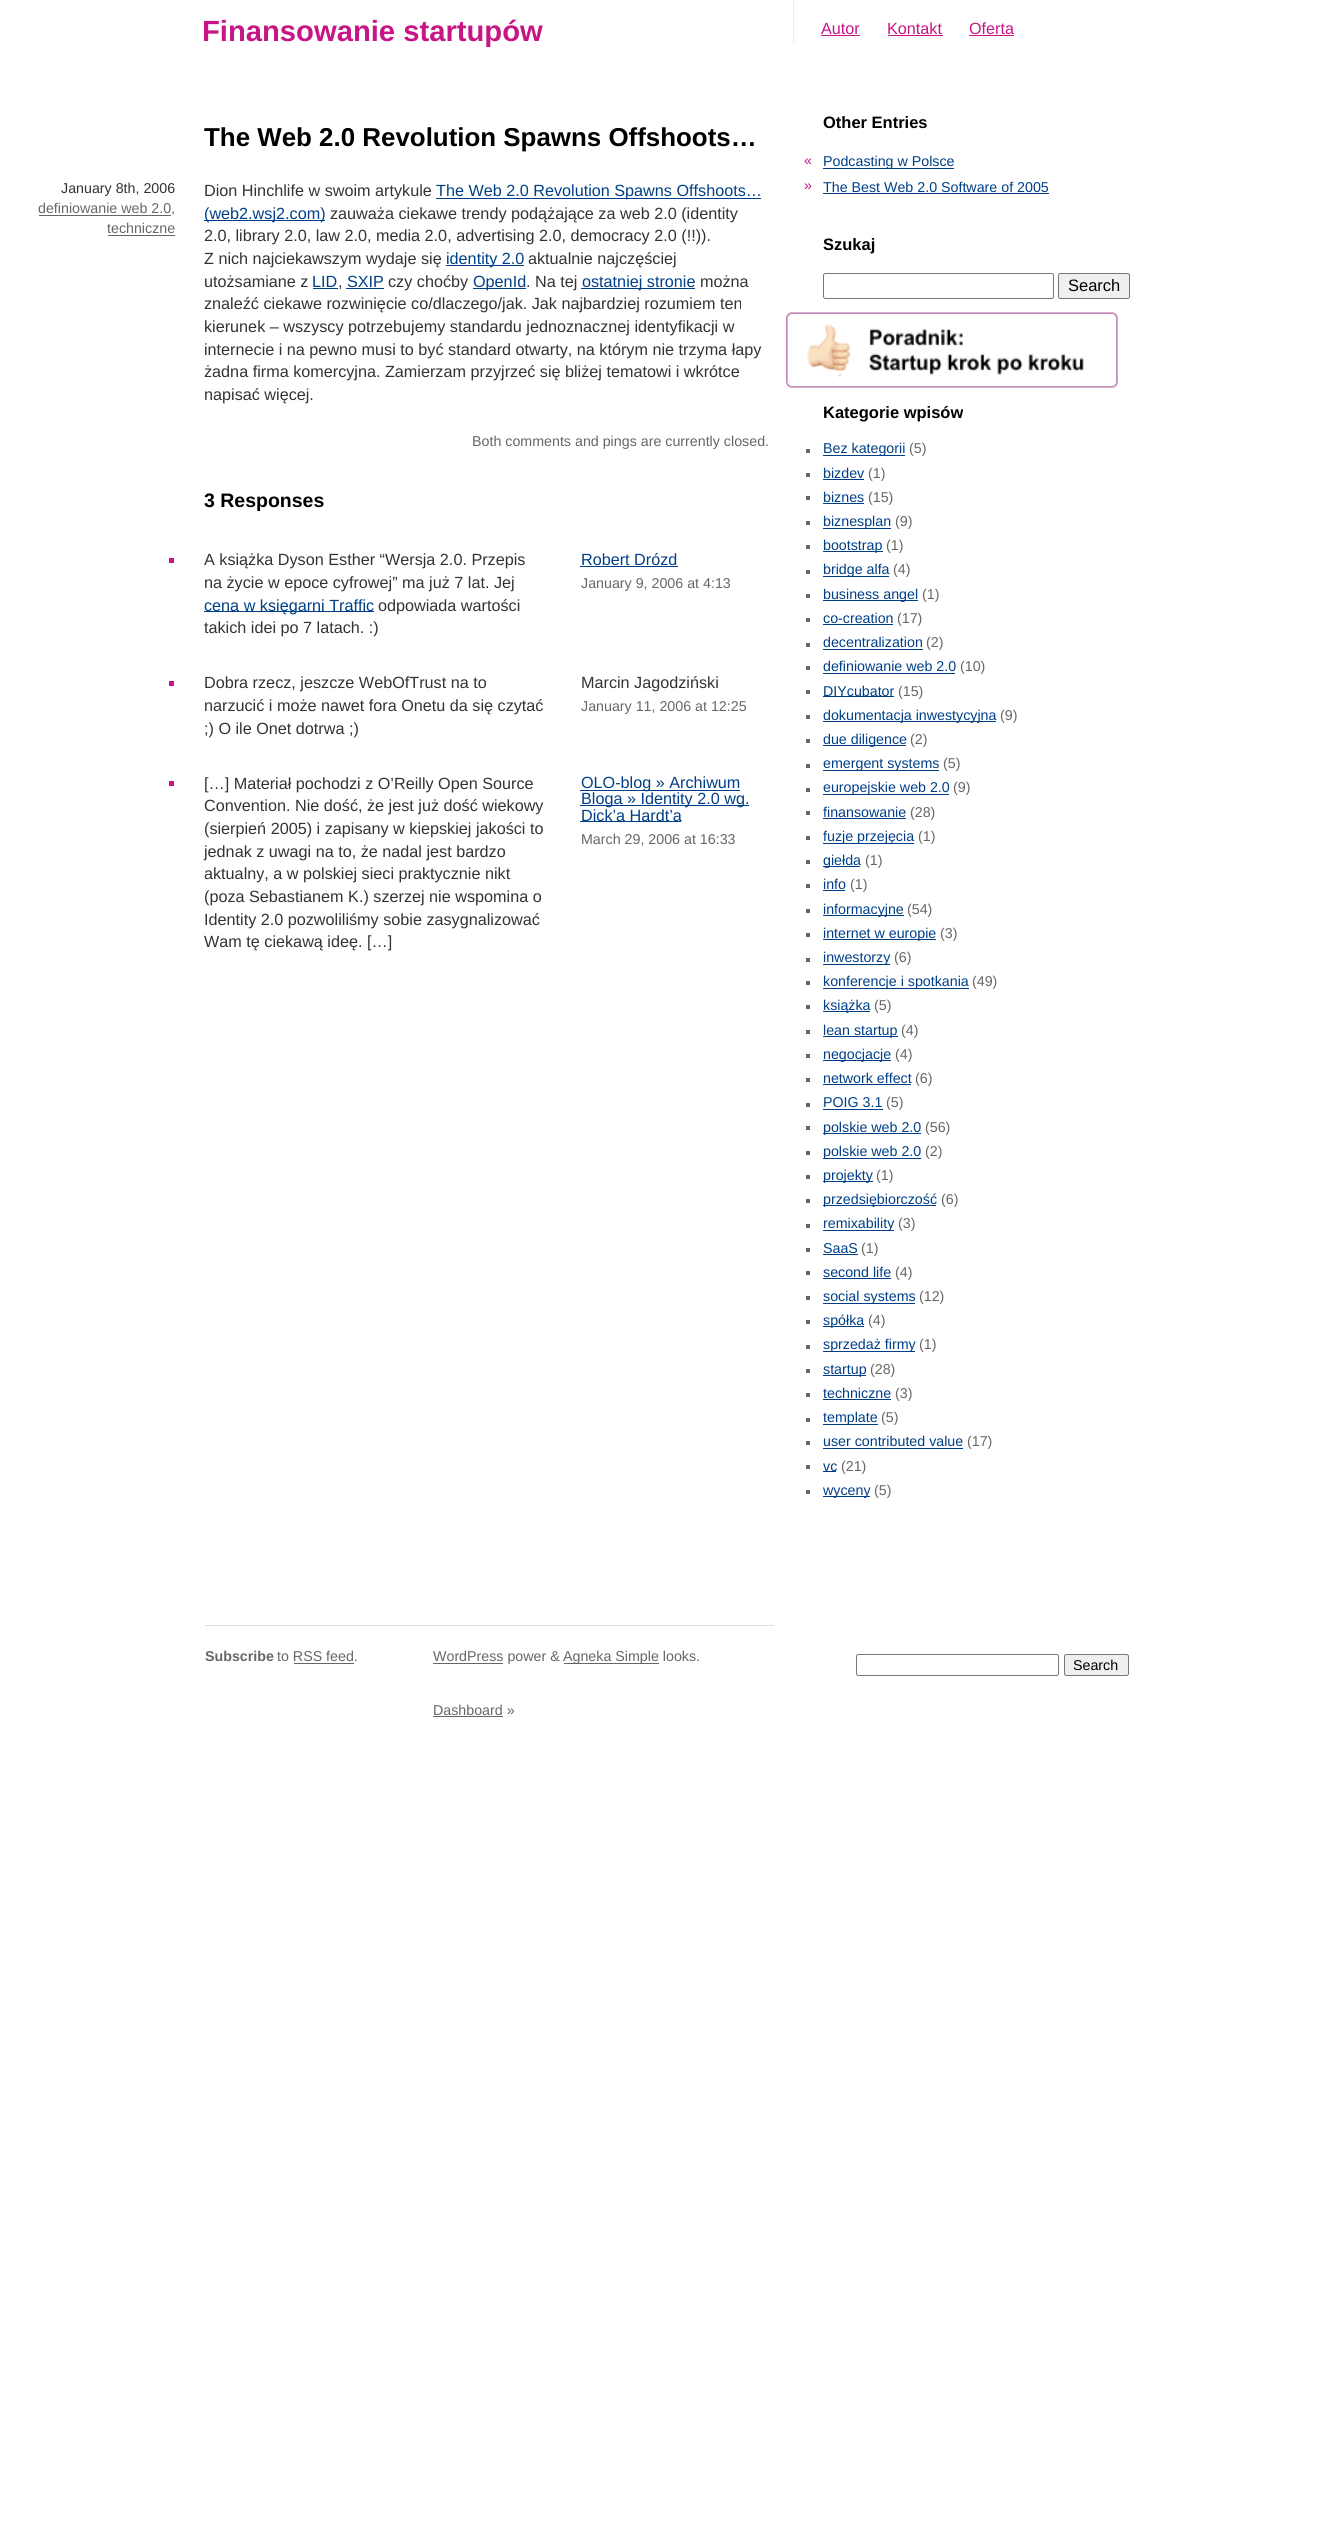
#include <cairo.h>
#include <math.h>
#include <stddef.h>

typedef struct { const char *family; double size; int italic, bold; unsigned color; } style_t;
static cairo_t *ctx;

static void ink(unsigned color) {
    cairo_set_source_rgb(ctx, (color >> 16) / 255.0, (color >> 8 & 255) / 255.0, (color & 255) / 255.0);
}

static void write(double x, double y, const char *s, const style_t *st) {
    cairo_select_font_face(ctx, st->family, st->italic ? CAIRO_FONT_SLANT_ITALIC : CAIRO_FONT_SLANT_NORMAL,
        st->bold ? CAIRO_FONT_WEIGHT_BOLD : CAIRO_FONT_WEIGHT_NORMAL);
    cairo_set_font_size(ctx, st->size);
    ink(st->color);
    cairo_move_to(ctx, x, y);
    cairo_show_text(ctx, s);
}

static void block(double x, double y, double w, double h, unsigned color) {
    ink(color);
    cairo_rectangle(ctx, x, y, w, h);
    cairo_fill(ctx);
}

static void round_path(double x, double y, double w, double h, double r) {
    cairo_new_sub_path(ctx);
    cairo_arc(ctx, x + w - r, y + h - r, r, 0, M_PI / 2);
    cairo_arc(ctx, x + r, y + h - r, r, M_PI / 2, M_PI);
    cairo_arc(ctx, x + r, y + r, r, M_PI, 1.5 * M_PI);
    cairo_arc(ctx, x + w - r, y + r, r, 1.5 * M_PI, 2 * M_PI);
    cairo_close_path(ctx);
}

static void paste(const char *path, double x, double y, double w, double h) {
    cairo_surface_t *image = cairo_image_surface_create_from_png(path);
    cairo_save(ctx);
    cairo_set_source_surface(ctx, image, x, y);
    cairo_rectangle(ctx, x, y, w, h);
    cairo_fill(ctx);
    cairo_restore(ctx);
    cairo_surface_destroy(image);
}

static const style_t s1 = {"Liberation Sans", 29.2, 0, 1, 0xc71585};
static const style_t s2 = {"Liberation Sans", 16.2, 0, 0, 0xc71585};
static const style_t s3 = {"Liberation Sans", 25.9, 0, 1, 0x000000};
static const style_t s4 = {"Liberation Sans", 14.25, 0, 0, 0x333333};
static const style_t s5 = {"Liberation Sans", 14.25, 0, 0, 0x666666};
static const style_t s6 = {"Liberation Sans", 16.2, 0, 0, 0x333333};
static const style_t s7 = {"Liberation Sans", 16.2, 0, 0, 0x003f87};
static const style_t s8 = {"Liberation Sans", 19.5, 0, 1, 0x000000};
static const style_t s9 = {"Liberation Sans", 16.5, 0, 1, 0x000000};
static const style_t s10 = {"Liberation Sans", 14.25, 0, 0, 0xc71585};
static const style_t s11 = {"Liberation Sans", 14.25, 0, 0, 0x003f87};
static const style_t s12 = {"Liberation Sans", 16.5, 0, 0, 0x000000};
static const style_t s13 = {"Liberation Sans", 14.25, 0, 1, 0x666666};
static const style_t s14 = {"Liberation Sans", 14.25, 0, 0, 0x000000};

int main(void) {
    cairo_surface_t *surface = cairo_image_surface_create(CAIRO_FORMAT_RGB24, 1340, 2524);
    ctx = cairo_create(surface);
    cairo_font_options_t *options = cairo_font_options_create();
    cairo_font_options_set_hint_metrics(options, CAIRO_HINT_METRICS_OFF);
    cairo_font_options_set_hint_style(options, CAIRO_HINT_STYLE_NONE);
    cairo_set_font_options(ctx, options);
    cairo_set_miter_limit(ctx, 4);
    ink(0xffffff);
    cairo_paint(ctx);
    write(202, 41, "Finansowanie startupów", &s1);
    block(793, 0, 1, 44, 0xeeeeee);
    write(821, 34, "Autor", &s2);
    block(821, 35, 39, 1, 0xc71585);
    write(887, 34, "Kontakt", &s2);
    block(888, 35, 55, 1, 0xc71585);
    write(969, 34, "Oferta", &s2);
    block(969, 35, 45, 1, 0xc71585);
    write(204, 146, "The Web 2.0 Revolution Spawns Offshoots…", &s3);
    write(61, 193, "January 8th, 2006", &s4);
    write(38, 213, "definiowanie web 2.0,", &s5);
    block(39, 215, 132, 1, 0x666666);
    write(107, 233, "techniczne", &s5);
    block(108, 235, 67, 1, 0x666666);
    write(204, 196, "Dion Hinchlife w swoim artykule", &s6);
    block(436, 198, 325, 1, 0x003f87);
    write(436, 196, "The Web 2.0 Revolution Spawns Offshoots…", &s7);
    block(204, 220, 121, 1, 0x003f87);
    write(204, 219, "(web2.wsj2.com)", &s7);
    write(330, 219, "zauważa ciekawe trendy podążające za web 2.0 (identity", &s6);
    write(204, 241, "2.0, library 2.0, law 2.0, media 2.0, advertising 2.0, democracy 2.0 (!!)).", &s6);
    write(204, 264, "Z nich najciekawszym wydaje się", &s6);
    block(446, 265, 78, 1, 0x003f87);
    write(446, 264, "identity 2.0", &s7);
    write(528, 264, "aktualnie najczęściej", &s6);
    write(204, 287, "utożsamiane z", &s6);
    write(312, 287, "LID", &s7);
    block(313, 288, 25, 1, 0x003f87);
    write(338, 287, ",", &s6);
    write(347, 287, "SXIP", &s7);
    block(346, 288, 38, 1, 0x003f87);
    write(388, 287, "czy choćby", &s6);
    block(473, 288, 53, 1, 0x003f87);
    write(473, 287, "OpenId", &s7);
    write(526, 287, ". Na tej", &s6);
    block(581, 288, 114, 1, 0x003f87);
    write(582, 287, "ostatniej stronie", &s7);
    write(700, 287, "można", &s6);
    write(204, 309, "znaleźć ciekawe rozwinięcie co/dlaczego/jak. Jak najbardziej rozumiem ten", &s6);
    write(204, 332, "kierunek – wszyscy potrzebujemy standardu jednoznacznej identyfikacji w", &s6);
    write(204, 355, "internecie i na pewno musi to być standard otwarty, na którym nie trzyma łapy", &s6);
    write(204, 377, "żadna firma komercyjna. Zamierzam przyjrzeć się bliżej tematowi i wkrótce", &s6);
    write(204, 400, "napisać więcej.", &s6);
    write(472, 446, "Both comments and pings are currently closed.", &s5);
    write(204, 507, "3 Responses", &s8);
    block(169, 558, 5, 5, 0xc71585);
    write(204, 565, "A książka Dyson Esther “Wersja 2.0. Przepis", &s6);
    write(204, 588, "na życie w epoce cyfrowej” ma już 7 lat. Jej", &s6);
    block(204, 611, 170, 1, 0x003f87);
    write(204, 611, "cena w księgarni Traffic", &s7);
    write(378, 611, "odpowiada wartości", &s6);
    write(204, 633, "takich idei po 7 latach. :)", &s6);
    write(581, 565, "Robert Drózd", &s7);
    block(580, 566, 98, 1, 0x003f87);
    write(581, 588, "January 9, 2006 at 4:13", &s5);
    block(169, 681, 5, 5, 0xc71585);
    write(204, 688, "Dobra rzecz, jeszcze WebOfTrust na to", &s6);
    write(204, 711, "narzucić i może nawet fora Onetu da się czytać", &s6);
    write(204, 734, ";) O ile Onet dotrwa ;)", &s6);
    write(581, 688, "Marcin Jagodziński", &s6);
    write(581, 711, "January 11, 2006 at 12:25", &s5);
    block(169, 781, 5, 5, 0xc71585);
    write(204, 789, "[…] Materiał pochodzi z O’Reilly Open Source", &s6);
    write(204, 811, "Convention. Nie dość, że jest już dość wiekowy", &s6);
    write(204, 834, "(sierpień 2005) i zapisany w kiepskiej jakości to", &s6);
    write(204, 857, "jednak z uwagi na to, że nadal jest bardzo", &s6);
    write(204, 879, "aktualny, a w polskiej sieci praktycznie nikt", &s6);
    write(204, 902, "(poza Sebastianem K.) szerzej nie wspomina o", &s6);
    write(204, 925, "Identity 2.0 pozwoliliśmy sobie zasygnalizować", &s6);
    write(204, 947, "Wam tę ciekawą ideę. […]", &s6);
    block(580, 790, 160, 1, 0x003f87);
    write(581, 788, "OLO-blog » Archiwum", &s7);
    block(580, 805, 169, 1, 0x003f87);
    write(581, 804, "Bloga » Identity 2.0 wg.", &s7);
    block(580, 821, 101, 1, 0x003f87);
    write(581, 821, "Dick’a Hardt’a", &s7);
    write(581, 844, "March 29, 2006 at 16:33", &s5);
    write(823, 128, "Other Entries", &s9);
    write(804, 165, "«", &s10);
    block(823, 168, 131, 1, 0x003f87);
    write(823, 166, "Podcasting w Polsce", &s11);
    write(804, 190, "»", &s10);
    write(823, 192, "The Best Web 2.0 Software of 2005", &s11);
    block(823, 193, 226, 1, 0x003f87);
    write(823, 250, "Szukaj", &s9);
    round_path(823.5, 273.5, 230, 25, 2);
    ink(0x767676);
    cairo_set_line_width(ctx, 1);
    cairo_stroke(ctx);
    ink(0xefefef);
    round_path(1058.5, 273.5, 71, 25, 2);
    cairo_fill_preserve(ctx);
    ink(0x767676);
    cairo_stroke(ctx);
    write(1068, 291, "Search", &s12);
    paste("pic1.png", 786, 312, 332, 76);
    write(823, 418, "Kategorie wpisów", &s9);
    block(806, 449, 4, 4, 0x666666);
    block(823, 455, 82, 1, 0x003f87);
    write(823, 453, "Bez kategorii", &s11);
    write(909, 453, "(5)", &s5);
    block(806, 473, 4, 4, 0x666666);
    write(823, 478, "bizdev", &s11);
    block(823, 479, 41, 1, 0x003f87);
    write(868, 478, "(1)", &s5);
    block(806, 496, 4, 4, 0x666666);
    write(823, 502, "biznes", &s11);
    block(823, 503, 41, 1, 0x003f87);
    write(868, 502, "(15)", &s5);
    block(806, 521, 4, 4, 0x666666);
    block(823, 528, 68, 1, 0x003f87);
    write(823, 526, "biznesplan", &s11);
    write(895, 526, "(9)", &s5);
    block(806, 545, 4, 4, 0x666666);
    block(823, 551, 60, 1, 0x003f87);
    write(823, 550, "bootstrap", &s11);
    write(886, 550, "(1)", &s5);
    block(806, 570, 4, 4, 0x666666);
    block(823, 576, 66, 1, 0x003f87);
    write(823, 574, "bridge alfa", &s11);
    write(893, 574, "(4)", &s5);
    block(806, 594, 4, 4, 0x666666);
    block(823, 600, 95, 1, 0x003f87);
    write(823, 599, "business angel", &s11);
    write(922, 599, "(1)", &s5);
    block(806, 618, 4, 4, 0x666666);
    write(823, 623, "co-creation", &s11);
    block(823, 624, 70, 1, 0x003f87);
    write(897, 623, "(17)", &s5);
    block(806, 643, 4, 4, 0x666666);
    write(823, 647, "decentralization", &s11);
    block(823, 649, 100, 1, 0x003f87);
    write(926, 647, "(2)", &s5);
    block(806, 666, 4, 4, 0x666666);
    write(823, 671, "definiowanie web 2.0", &s11);
    block(823, 673, 132, 1, 0x003f87);
    write(960, 671, "(10)", &s5);
    block(806, 690, 4, 4, 0x666666);
    block(823, 696, 71, 1, 0x003f87);
    write(823, 696, "DIYcubator", &s11);
    write(898, 696, "(15)", &s5);
    block(806, 715, 4, 4, 0x666666);
    block(823, 721, 173, 1, 0x003f87);
    write(823, 720, "dokumentacja inwestycyjna", &s11);
    write(1000, 720, "(9)", &s5);
    block(806, 739, 4, 4, 0x666666);
    block(823, 745, 83, 1, 0x003f87);
    write(823, 744, "due diligence", &s11);
    write(910, 744, "(2)", &s5);
    block(806, 764, 4, 4, 0x666666);
    block(823, 770, 116, 1, 0x003f87);
    write(823, 768, "emergent systems", &s11);
    write(943, 768, "(5)", &s5);
    block(806, 788, 4, 4, 0x666666);
    block(823, 794, 126, 1, 0x003f87);
    write(823, 792, "europejskie web 2.0", &s11);
    write(953, 792, "(9)", &s5);
    block(806, 811, 4, 4, 0x666666);
    write(823, 817, "finansowanie", &s11);
    block(823, 818, 83, 1, 0x003f87);
    write(910, 817, "(28)", &s5);
    block(806, 836, 4, 4, 0x666666);
    block(823, 843, 91, 1, 0x003f87);
    write(823, 841, "fuzje przejęcia", &s11);
    write(918, 841, "(1)", &s5);
    block(806, 860, 4, 4, 0x666666);
    block(823, 866, 37, 1, 0x003f87);
    write(823, 865, "giełda", &s11);
    write(865, 865, "(1)", &s5);
    block(806, 884, 4, 4, 0x666666);
    write(823, 889, "info", &s11);
    block(823, 890, 22, 1, 0x003f87);
    write(850, 889, "(1)", &s5);
    block(806, 909, 4, 4, 0x666666);
    block(823, 915, 81, 1, 0x003f87);
    write(823, 914, "informacyjne", &s11);
    write(907, 914, "(54)", &s5);
    block(806, 933, 4, 4, 0x666666);
    block(823, 939, 113, 1, 0x003f87);
    write(823, 938, "internet w europie", &s11);
    write(940, 938, "(3)", &s5);
    block(806, 958, 4, 4, 0x666666);
    block(823, 964, 67, 1, 0x003f87);
    write(823, 962, "inwestorzy", &s11);
    write(894, 962, "(6)", &s5);
    block(806, 981, 4, 4, 0x666666);
    block(823, 988, 146, 1, 0x003f87);
    write(823, 986, "konferencje i spotkania", &s11);
    write(972, 986, "(49)", &s5);
    block(806, 1005, 4, 4, 0x666666);
    block(823, 1011, 47, 1, 0x003f87);
    write(823, 1010, "książka", &s11);
    write(874, 1010, "(5)", &s5);
    block(806, 1030, 4, 4, 0x666666);
    block(823, 1036, 75, 1, 0x003f87);
    write(823, 1035, "lean startup", &s11);
    write(901, 1035, "(4)", &s5);
    block(806, 1054, 4, 4, 0x666666);
    block(823, 1060, 68, 1, 0x003f87);
    write(823, 1059, "negocjacje", &s11);
    write(895, 1059, "(4)", &s5);
    block(806, 1078, 4, 4, 0x666666);
    write(823, 1083, "network effect", &s11);
    block(823, 1084, 88, 1, 0x003f87);
    write(915, 1083, "(6)", &s5);
    block(806, 1103, 4, 4, 0x666666);
    write(823, 1107, "POIG 3.1", &s11);
    block(823, 1109, 60, 1, 0x003f87);
    write(886, 1107, "(5)", &s5);
    block(806, 1126, 4, 4, 0x666666);
    block(823, 1133, 98, 1, 0x003f87);
    write(823, 1132, "polskie web 2.0", &s11);
    write(925, 1132, "(56)", &s5);
    block(806, 1151, 4, 4, 0x666666);
    block(823, 1158, 98, 1, 0x003f87);
    write(823, 1156, "polskie web 2.0", &s11);
    write(925, 1156, "(2)", &s5);
    block(806, 1175, 4, 4, 0x666666);
    block(823, 1181, 50, 1, 0x003f87);
    write(823, 1180, "projekty", &s11);
    write(876, 1180, "(1)", &s5);
    block(806, 1199, 4, 4, 0x666666);
    block(823, 1205, 113, 1, 0x003f87);
    write(823, 1204, "przedsiębiorczość", &s11);
    write(941, 1204, "(6)", &s5);
    block(806, 1224, 4, 4, 0x666666);
    block(823, 1230, 71, 1, 0x003f87);
    write(823, 1228, "remixability", &s11);
    write(898, 1228, "(3)", &s5);
    block(806, 1248, 4, 4, 0x666666);
    write(823, 1253, "SaaS", &s11);
    block(823, 1254, 35, 1, 0x003f87);
    write(861, 1253, "(1)", &s5);
    block(806, 1271, 4, 4, 0x666666);
    write(823, 1277, "second life", &s11);
    block(823, 1278, 68, 1, 0x003f87);
    write(895, 1277, "(4)", &s5);
    block(806, 1296, 4, 4, 0x666666);
    block(823, 1303, 92, 1, 0x003f87);
    write(823, 1301, "social systems", &s11);
    write(919, 1301, "(12)", &s5);
    block(806, 1320, 4, 4, 0x666666);
    block(823, 1326, 41, 1, 0x003f87);
    write(823, 1325, "spółka", &s11);
    write(868, 1325, "(4)", &s5);
    block(806, 1345, 4, 4, 0x666666);
    block(823, 1351, 92, 1, 0x003f87);
    write(823, 1349, "sprzedaż firmy", &s11);
    write(919, 1349, "(1)", &s5);
    block(806, 1369, 4, 4, 0x666666);
    block(823, 1375, 43, 1, 0x003f87);
    write(823, 1374, "startup", &s11);
    write(870, 1374, "(28)", &s5);
    block(806, 1393, 4, 4, 0x666666);
    write(823, 1398, "techniczne", &s11);
    block(823, 1399, 68, 1, 0x003f87);
    write(895, 1398, "(3)", &s5);
    block(806, 1418, 4, 4, 0x666666);
    block(823, 1424, 55, 1, 0x003f87);
    write(823, 1422, "template", &s11);
    write(881, 1422, "(5)", &s5);
    block(806, 1441, 4, 4, 0x666666);
    write(823, 1446, "user contributed value", &s11);
    block(823, 1448, 140, 1, 0x003f87);
    write(967, 1446, "(17)", &s5);
    block(806, 1465, 4, 4, 0x666666);
    block(823, 1471, 13, 1, 0x003f87);
    write(823, 1471, "vc", &s11);
    write(841, 1471, "(21)", &s5);
    block(806, 1490, 4, 4, 0x666666);
    block(823, 1496, 47, 1, 0x003f87);
    write(823, 1495, "wyceny", &s11);
    write(874, 1495, "(5)", &s5);
    block(205, 1625, 569, 1, 0xdddddd);
    write(205, 1661, "Subscribe", &s13);
    write(277, 1661, "to RSS feed.", &s5);
    block(294, 1663, 60, 1, 0x666666);
    block(433, 1663, 70, 1, 0x666666);
    write(433, 1661, "WordPress power &", &s5);
    block(564, 1663, 95, 1, 0x666666);
    write(563, 1661, "Agneka Simple looks.", &s5);
    write(433, 1715, "Dashboard »", &s5);
    block(433, 1716, 70, 1, 0x666666);
    round_path(856.5, 1654.5, 202, 21, 2);
    ink(0x767676);
    cairo_stroke(ctx);
    ink(0xefefef);
    round_path(1064.5, 1654.5, 64, 21, 2);
    cairo_fill_preserve(ctx);
    ink(0x767676);
    cairo_stroke(ctx);
    write(1073, 1670, "Search", &s14);
    cairo_surface_write_to_png(surface, "screenshot.png");
    cairo_font_options_destroy(options);
    cairo_destroy(ctx);
    cairo_surface_destroy(surface);
    return 0;
}
